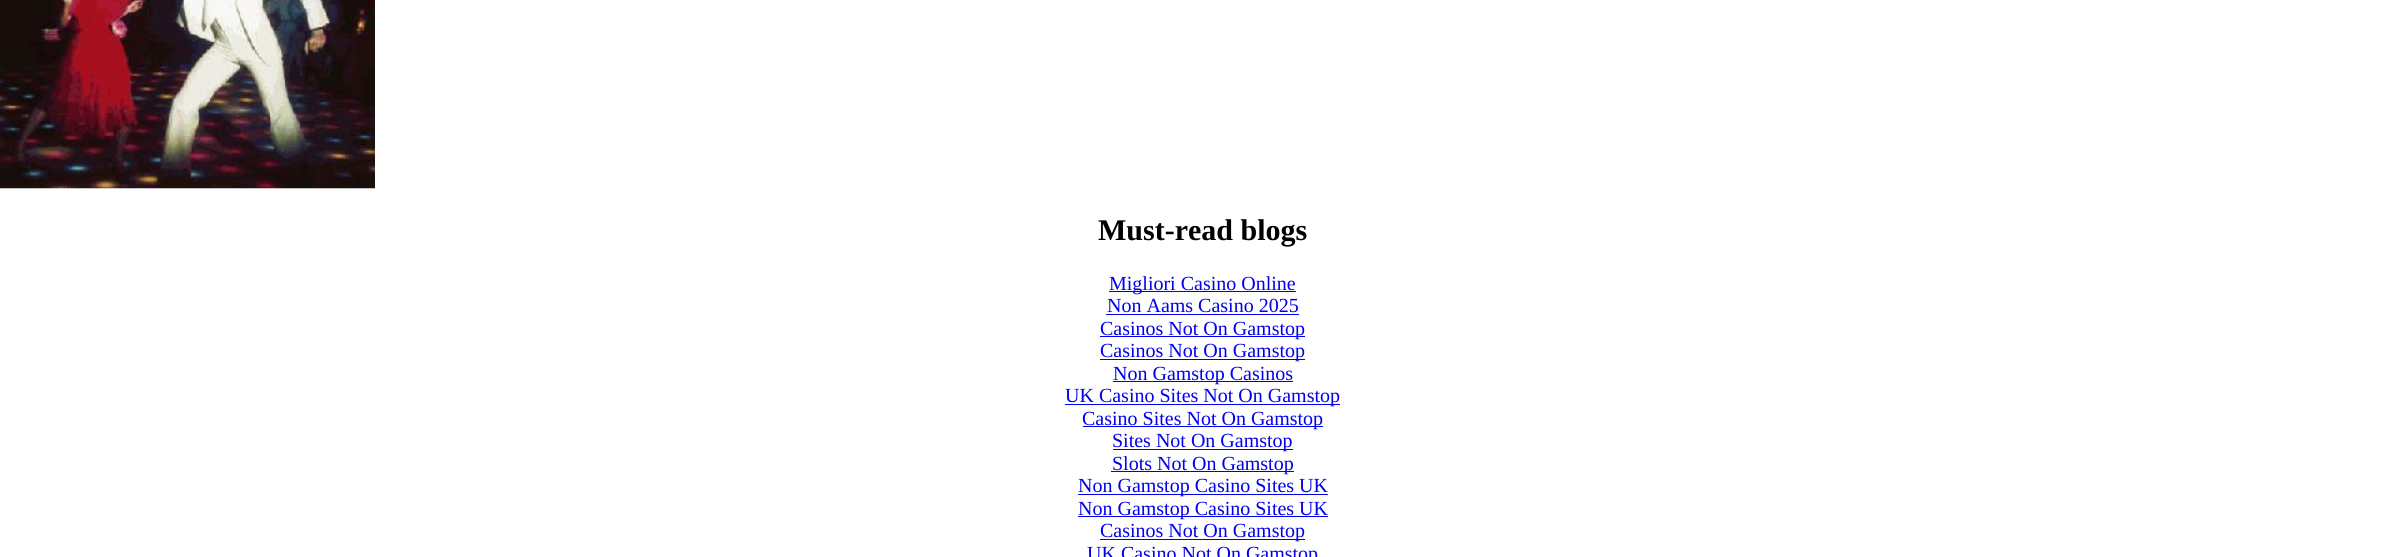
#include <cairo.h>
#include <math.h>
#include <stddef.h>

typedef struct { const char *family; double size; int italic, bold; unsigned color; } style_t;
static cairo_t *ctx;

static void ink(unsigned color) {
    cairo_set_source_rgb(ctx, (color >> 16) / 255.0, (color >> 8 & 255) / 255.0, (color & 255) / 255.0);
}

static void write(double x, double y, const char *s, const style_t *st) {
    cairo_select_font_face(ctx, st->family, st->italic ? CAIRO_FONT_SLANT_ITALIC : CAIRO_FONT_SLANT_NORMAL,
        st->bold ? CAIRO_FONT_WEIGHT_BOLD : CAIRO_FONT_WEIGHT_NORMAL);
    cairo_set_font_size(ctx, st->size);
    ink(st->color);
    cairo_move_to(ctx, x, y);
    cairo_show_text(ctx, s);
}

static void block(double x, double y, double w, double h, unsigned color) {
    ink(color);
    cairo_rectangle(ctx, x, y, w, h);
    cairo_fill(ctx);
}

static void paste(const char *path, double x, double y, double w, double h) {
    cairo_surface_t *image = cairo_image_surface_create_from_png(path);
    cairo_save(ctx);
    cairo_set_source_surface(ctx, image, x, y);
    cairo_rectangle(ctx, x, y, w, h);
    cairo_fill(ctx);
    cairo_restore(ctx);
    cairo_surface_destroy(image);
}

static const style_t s1 = {"Liberation Serif", 30, 0, 1, 0x000000};
static const style_t s2 = {"Liberation Serif", 20, 0, 0, 0x0000ee};

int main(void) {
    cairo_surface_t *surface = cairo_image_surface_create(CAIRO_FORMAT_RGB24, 2404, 557);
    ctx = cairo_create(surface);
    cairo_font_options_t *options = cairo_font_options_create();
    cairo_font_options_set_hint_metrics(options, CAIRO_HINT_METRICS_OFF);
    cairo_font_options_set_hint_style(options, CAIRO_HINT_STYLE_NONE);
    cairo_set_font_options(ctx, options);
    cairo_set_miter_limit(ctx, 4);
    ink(0xffffff);
    cairo_paint(ctx);
    paste("pic1.png", 0, 0, 375, 189);
    write(1098, 240, "Must-read blogs", &s1);
    block(1109, 291, 187, 1, 0x0000ee);
    write(1109, 290, "Migliori Casino Online", &s2);
    write(1107, 312, "Non Aams Casino 2025", &s2);
    block(1106, 314, 193, 1, 0x0000ee);
    block(1100, 336, 205, 1, 0x0000ee);
    write(1100, 335, "Casinos Not On Gamstop", &s2);
    block(1100, 359, 205, 1, 0x0000ee);
    write(1100, 357, "Casinos Not On Gamstop", &s2);
    block(1113, 381, 180, 1, 0x0000ee);
    write(1113, 380, "Non Gamstop Casinos", &s2);
    block(1065, 404, 275, 1, 0x0000ee);
    write(1065, 402, "UK Casino Sites Not On Gamstop", &s2);
    block(1083, 426, 240, 1, 0x0000ee);
    write(1082, 425, "Casino Sites Not On Gamstop", &s2);
    block(1113, 449, 180, 1, 0x0000ee);
    write(1112, 447, "Sites Not On Gamstop", &s2);
    block(1111, 471, 183, 1, 0x0000ee);
    write(1112, 470, "Slots Not On Gamstop", &s2);
    block(1078, 494, 250, 1, 0x0000ee);
    write(1078, 492, "Non Gamstop Casino Sites UK", &s2);
    block(1078, 516, 250, 1, 0x0000ee);
    write(1078, 515, "Non Gamstop Casino Sites UK", &s2);
    block(1100, 539, 205, 1, 0x0000ee);
    write(1100, 537, "Casinos Not On Gamstop", &s2);
    write(1087, 560, "UK Casino Not On Gamstop", &s2);
    cairo_surface_write_to_png(surface, "screenshot.png");
    cairo_font_options_destroy(options);
    cairo_destroy(ctx);
    cairo_surface_destroy(surface);
    return 0;
}
